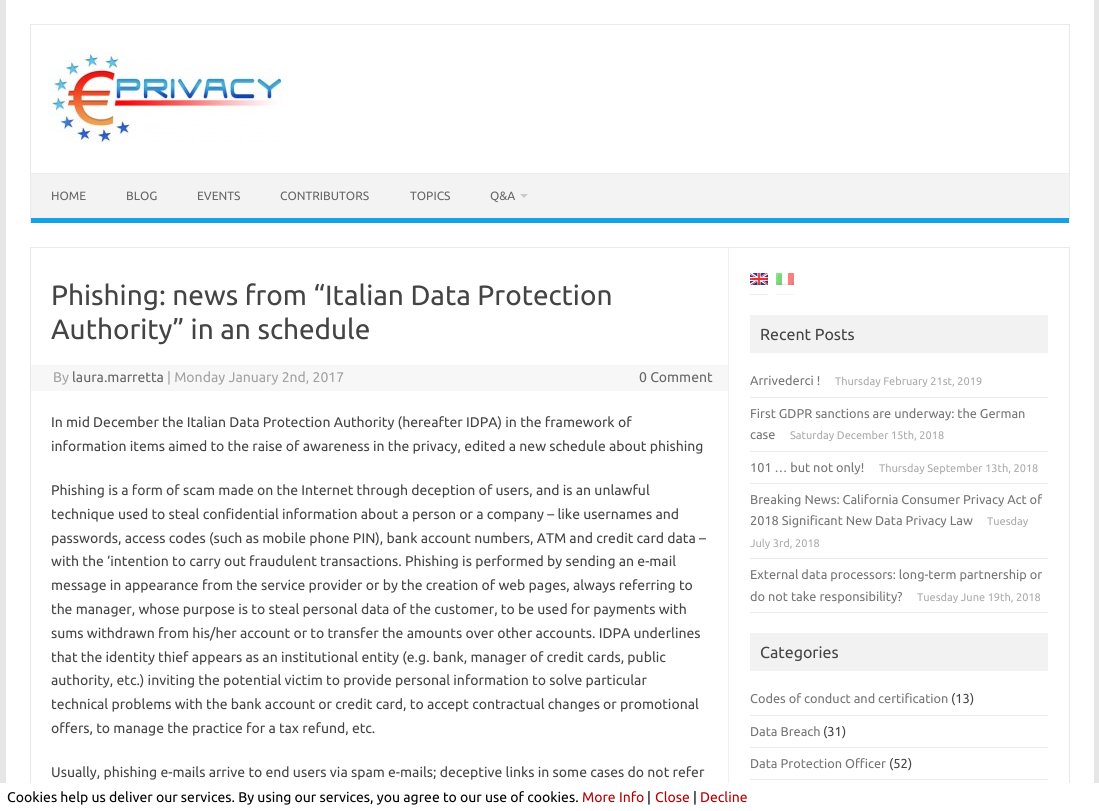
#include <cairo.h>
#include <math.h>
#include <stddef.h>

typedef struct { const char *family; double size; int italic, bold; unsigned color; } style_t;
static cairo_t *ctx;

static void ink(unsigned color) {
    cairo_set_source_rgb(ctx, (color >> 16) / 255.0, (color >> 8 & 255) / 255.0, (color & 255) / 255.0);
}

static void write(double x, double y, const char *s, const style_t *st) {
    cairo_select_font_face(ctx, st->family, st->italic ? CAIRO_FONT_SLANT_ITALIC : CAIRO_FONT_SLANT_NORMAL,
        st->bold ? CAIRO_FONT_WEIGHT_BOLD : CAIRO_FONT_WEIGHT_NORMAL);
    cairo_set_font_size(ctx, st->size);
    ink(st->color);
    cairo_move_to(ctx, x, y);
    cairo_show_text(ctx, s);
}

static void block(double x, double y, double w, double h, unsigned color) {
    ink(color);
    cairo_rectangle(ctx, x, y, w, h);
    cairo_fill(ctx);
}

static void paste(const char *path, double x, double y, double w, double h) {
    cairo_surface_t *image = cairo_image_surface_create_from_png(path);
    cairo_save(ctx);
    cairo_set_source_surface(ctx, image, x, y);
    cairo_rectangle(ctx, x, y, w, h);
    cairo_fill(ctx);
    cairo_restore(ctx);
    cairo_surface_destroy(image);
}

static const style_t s1 = {"Ubuntu", 12, 0, 0, 0x666666};
static const style_t s2 = {"Ubuntu", 28, 0, 0, 0x444444};
static const style_t s3 = {"Ubuntu", 14, 0, 0, 0xa2a2a2};
static const style_t s4 = {"Ubuntu", 14, 0, 0, 0x666666};
static const style_t s5 = {"Ubuntu", 14, 0, 0, 0x444444};
static const style_t s6 = {"Ubuntu", 16, 0, 0, 0x444444};
static const style_t s7 = {"Ubuntu", 12.75, 0, 0, 0x757575};
static const style_t s8 = {"Ubuntu", 11, 0, 0, 0xaaaaaa};
static const style_t s9 = {"Ubuntu", 13, 0, 0, 0x444444};
static const style_t s10 = {"Ubuntu", 14, 0, 0, 0x000000};
static const style_t s11 = {"Ubuntu", 14, 0, 0, 0xb30000};

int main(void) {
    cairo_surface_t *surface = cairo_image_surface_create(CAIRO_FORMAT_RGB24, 1099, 811);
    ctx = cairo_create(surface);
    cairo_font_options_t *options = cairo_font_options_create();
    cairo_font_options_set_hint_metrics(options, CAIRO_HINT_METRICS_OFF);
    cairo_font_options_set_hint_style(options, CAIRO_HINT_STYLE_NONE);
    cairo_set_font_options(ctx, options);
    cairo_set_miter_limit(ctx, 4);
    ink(0xe6e6e6);
    cairo_paint(ctx);
    block(6, 0, 1088, 783, 0xffffff);
    block(30, 24, 1040, 1, 0xe9e9e9);
    block(1069, 24, 1, 199, 0xe9e9e9);
    block(30, 24, 1, 199, 0xe9e9e9);
    paste("pic1.png", 48, 52, 240, 92);
    block(31, 174, 1038, 44, 0xf3f3f3);
    block(31, 173, 1038, 1, 0xededed);
    block(31, 218, 1038, 5, 0x16a1e7);
    write(51, 200, "HOME", &s1);
    write(126, 200, "BLOG", &s1);
    write(197, 200, "EVENTS", &s1);
    write(280, 200, "CONTRIBUTORS", &s1);
    write(410, 200, "TOPICS", &s1);
    write(490, 200, "Q&A", &s1);
    ink(0xc9c9c9);
    cairo_new_path(ctx);
    cairo_move_to(ctx, 520, 194);
    cairo_line_to(ctx, 528, 194);
    cairo_line_to(ctx, 524, 198);
    cairo_close_path(ctx);
    cairo_fill(ctx);
    cairo_rectangle(ctx, 30.5, 247.5, 1039, 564);
    ink(0xe9e9e9);
    cairo_set_line_width(ctx, 1);
    cairo_stroke(ctx);
    block(728, 248, 1, 535, 0xf1f1f1);
    write(51, 305, "Phishing: news from “Italian Data Protection", &s2);
    write(51, 339, "Authority” in an schedule", &s2);
    block(31, 365, 697, 26, 0xf7f7f7);
    write(53, 382, "By", &s3);
    write(72, 382, "laura.marretta", &s4);
    write(167, 382, "| Monday January 2nd, 2017", &s3);
    write(639, 382, "0 Comment", &s4);
    write(51, 427, "In mid December the Italian Data Protection Authority (hereafter IDPA) in the framework of", &s5);
    write(51, 451, "information items aimed to the raise of awareness in the privacy, edited a new schedule about phishing", &s5);
    write(51, 495, "Phishing is a form of scam made on the Internet through deception of users, and is an unlawful", &s5);
    write(51, 519, "technique used to steal confidential information about a person or a company – like usernames and", &s5);
    write(51, 543, "passwords, access codes (such as mobile phone PIN), bank account numbers, ATM and credit card data –", &s5);
    write(51, 566, "with the ‘intention to carry out fraudulent transactions. Phishing is performed by sending an e-mail", &s5);
    write(51, 590, "message in appearance from the service provider or by the creation of web pages, always referring to", &s5);
    write(51, 614, "the manager, whose purpose is to steal personal data of the customer, to be used for payments with", &s5);
    write(51, 638, "sums withdrawn from his/her account or to transfer the amounts over other accounts. IDPA underlines", &s5);
    write(51, 662, "that the identity thief appears as an institutional entity (e.g. bank, manager of credit cards, public", &s5);
    write(51, 685, "authority, etc.) inviting the potential victim to provide personal information to solve particular", &s5);
    write(51, 709, "technical problems with the bank account or credit card, to accept contractual changes or promotional", &s5);
    write(51, 733, "offers, to manage the practice for a tax refund, etc.", &s5);
    write(51, 777, "Usually, phishing e-mails arrive to end users via spam e-mails; deceptive links in some cases do not refer", &s5);
    paste("pic2.png", 750, 273, 18, 12);
    paste("pic3.png", 776, 273, 18, 12);
    block(750, 294, 18, 1, 0xededed);
    block(776, 294, 18, 1, 0xf4f4f4);
    block(750, 315, 298, 38, 0xf2f2f2);
    write(760, 340, "Recent Posts", &s6);
    block(750, 397, 298, 1, 0xe9e9e9);
    write(750, 385, "Arrivederci !", &s7);
    write(835, 385, "Thursday February 21st, 2019", &s8);
    block(750, 451, 298, 1, 0xe9e9e9);
    write(750, 418, "First GDPR sanctions are underway: the German", &s7);
    write(750, 439, "case", &s7);
    write(790, 439, "Saturday December 15th, 2018", &s8);
    block(750, 483, 298, 1, 0xe9e9e9);
    write(750, 472, "101 … but not only!", &s7);
    write(879, 472, "Thursday September 13th, 2018", &s8);
    block(750, 558, 298, 1, 0xe9e9e9);
    write(750, 504, "Breaking News: California Consumer Privacy Act of", &s7);
    write(750, 525, "2018 Significant New Data Privacy Law", &s7);
    write(987, 525, "Tuesday", &s8);
    write(750, 547, "July 3rd, 2018", &s8);
    block(750, 612, 298, 1, 0xe9e9e9);
    write(750, 579, "External data processors: long-term partnership or", &s7);
    write(750, 601, "do not take responsibility?", &s7);
    write(917, 601, "Tuesday June 19th, 2018", &s8);
    block(750, 633, 298, 38, 0xf2f2f2);
    write(760, 658, "Categories", &s6);
    block(750, 715, 298, 1, 0xe9e9e9);
    write(750, 703, "Codes of conduct and certification", &s7);
    write(951, 703, "(13)", &s9);
    block(750, 747, 298, 1, 0xe9e9e9);
    write(750, 736, "Data Breach", &s7);
    write(823, 736, "(31)", &s9);
    block(750, 779, 298, 1, 0xe9e9e9);
    write(750, 768, "Data Protection Officer", &s7);
    write(889, 768, "(52)", &s9);
    block(0, 783, 1099, 28, 0xffffff);
    write(7, 802, "Cookies help us deliver our services. By using our services, you agree to our use of cookies.", &s10);
    write(582, 802, "More Info", &s11);
    write(647, 802, "|", &s10);
    write(655, 802, "Close", &s11);
    write(693, 802, "|", &s10);
    write(700, 802, "Decline", &s11);
    cairo_surface_write_to_png(surface, "screenshot.png");
    cairo_font_options_destroy(options);
    cairo_destroy(ctx);
    cairo_surface_destroy(surface);
    return 0;
}
